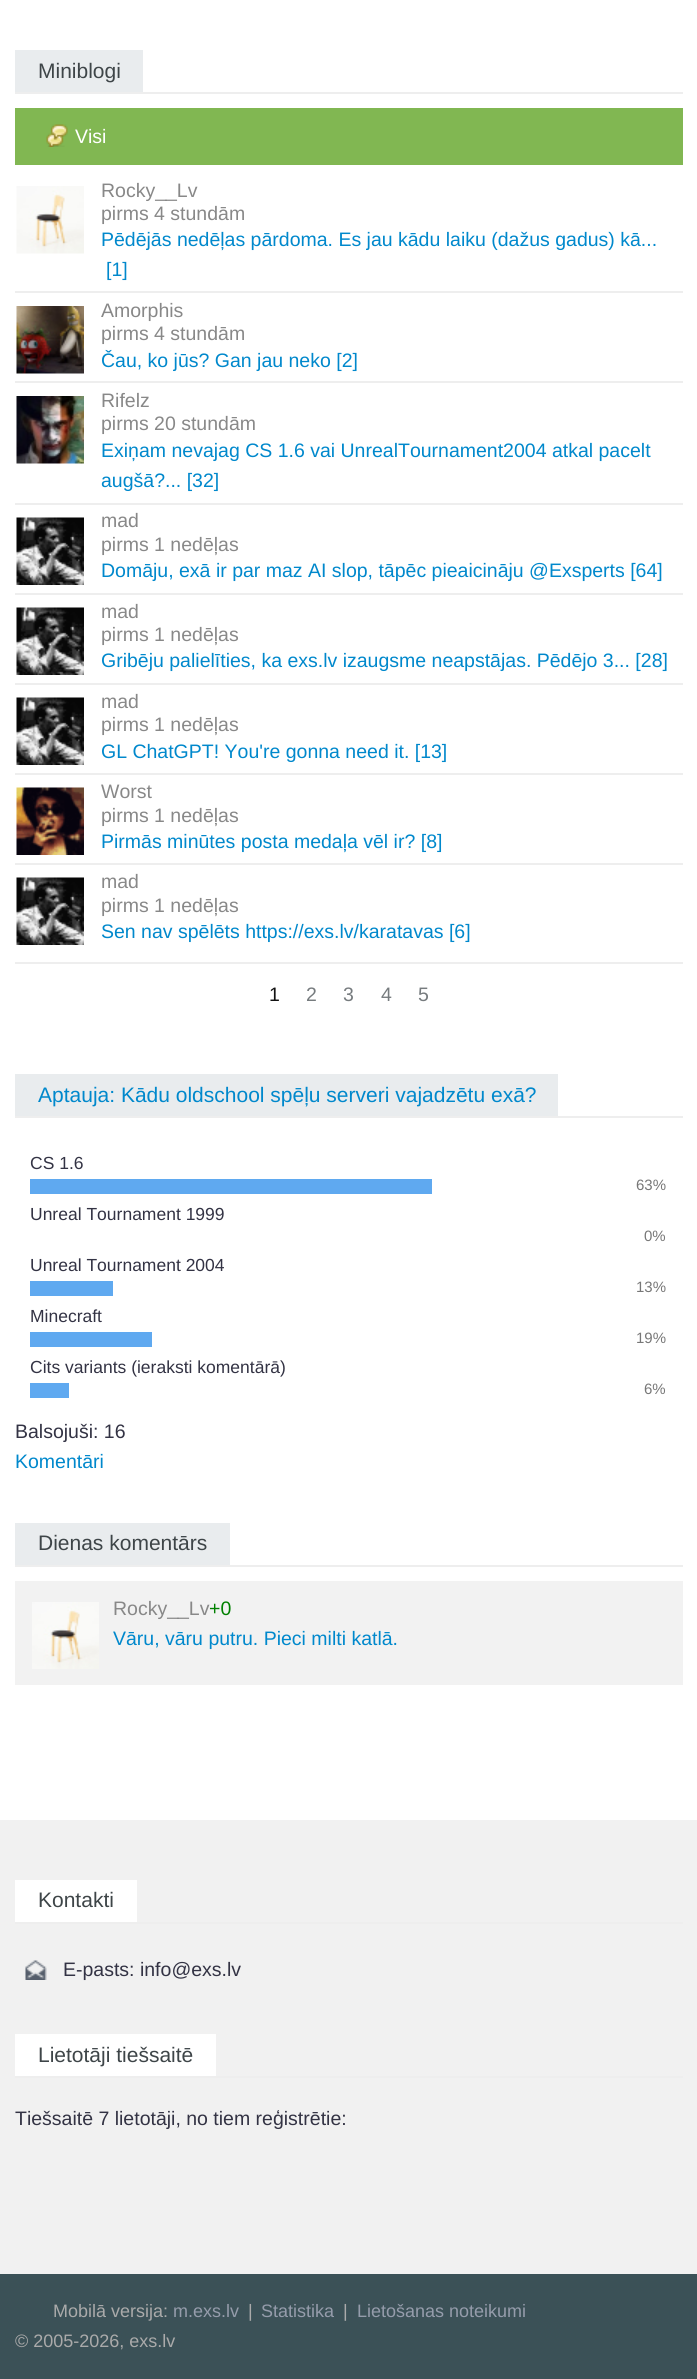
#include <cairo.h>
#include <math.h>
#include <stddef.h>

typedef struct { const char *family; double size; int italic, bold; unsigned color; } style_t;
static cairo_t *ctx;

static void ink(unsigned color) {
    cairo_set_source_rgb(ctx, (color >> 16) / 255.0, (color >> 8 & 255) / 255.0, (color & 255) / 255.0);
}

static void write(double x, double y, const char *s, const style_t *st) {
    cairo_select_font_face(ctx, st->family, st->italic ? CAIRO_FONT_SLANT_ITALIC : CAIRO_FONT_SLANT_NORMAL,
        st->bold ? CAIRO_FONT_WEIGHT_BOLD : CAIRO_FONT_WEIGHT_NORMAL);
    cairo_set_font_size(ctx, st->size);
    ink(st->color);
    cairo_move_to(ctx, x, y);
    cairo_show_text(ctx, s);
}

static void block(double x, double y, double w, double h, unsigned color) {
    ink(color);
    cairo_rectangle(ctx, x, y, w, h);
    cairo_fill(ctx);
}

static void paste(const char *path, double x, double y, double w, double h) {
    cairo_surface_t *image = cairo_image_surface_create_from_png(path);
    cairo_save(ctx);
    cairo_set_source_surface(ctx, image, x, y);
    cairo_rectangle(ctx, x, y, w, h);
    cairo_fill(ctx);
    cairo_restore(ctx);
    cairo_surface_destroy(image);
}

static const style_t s1 = {"Liberation Sans", 21, 0, 0, 0x3e4548};
static const style_t s2 = {"Liberation Sans", 19.5, 0, 0, 0xffffff};
static const style_t s3 = {"Liberation Sans", 19.5, 0, 0, 0x888888};
static const style_t s4 = {"Liberation Sans", 19.5, 0, 0, 0x0088cc};
static const style_t s5 = {"Liberation Sans", 19.5, 0, 0, 0x121212};
static const style_t s6 = {"Liberation Sans", 19.5, 0, 0, 0x767b7e};
static const style_t s7 = {"Liberation Sans", 21, 0, 0, 0x0088cc};
static const style_t s8 = {"Liberation Sans", 17.5, 0, 0, 0x333344};
static const style_t s9 = {"Liberation Sans", 15, 0, 0, 0x777777};
static const style_t s10 = {"Liberation Sans", 19.5, 0, 0, 0x333344};
static const style_t s11 = {"Liberation Sans", 19.5, 0, 0, 0x008000};
static const style_t s12 = {"Liberation Sans", 18, 0, 0, 0xaaaaaa};
static const style_t s13 = {"Liberation Sans", 18, 0, 0, 0x959cab};

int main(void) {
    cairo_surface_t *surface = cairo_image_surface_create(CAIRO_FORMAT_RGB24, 697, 2379);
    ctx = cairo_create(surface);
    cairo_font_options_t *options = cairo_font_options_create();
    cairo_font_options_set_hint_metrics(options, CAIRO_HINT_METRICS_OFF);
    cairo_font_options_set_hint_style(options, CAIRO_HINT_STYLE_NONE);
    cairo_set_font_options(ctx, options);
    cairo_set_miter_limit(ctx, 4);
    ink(0xffffff);
    cairo_paint(ctx);
    block(15, 92, 668, 2, 0xeeeeee);
    block(15, 50, 128, 42, 0xe9ecee);
    write(38, 78, "Miniblogi", &s1);
    block(15, 108, 668, 57, 0x81b752);
    paste("pic1.png", 46, 124, 22, 23);
    write(75, 143, "Visi", &s2);
    block(15, 291, 668, 2, 0xeeeeee);
    paste("pic2.png", 16, 186, 68, 68);
    write(101, 197, "Rocky__Lv", &s3);
    write(101, 220, "pirms 4 stundām", &s3);
    write(101, 246, "Pēdējās nedēļas pārdoma. Es jau kādu laiku (dažus gadus) kā...", &s4);
    write(106, 276, "[1]", &s4);
    block(15, 381, 668, 2, 0xeeeeee);
    paste("pic3.png", 16, 306, 68, 68);
    write(101, 317, "Amorphis", &s3);
    write(101, 340, "pirms 4 stundām", &s3);
    write(101, 367, "Čau, ko jūs? Gan jau neko [2]", &s4);
    block(15, 503, 668, 2, 0xeeeeee);
    paste("pic4.png", 16, 396, 68, 68);
    write(101, 407, "Rifelz", &s3);
    write(101, 430, "pirms 20 stundām", &s3);
    write(101, 457, "Exiņam nevajag CS 1.6 vai UnrealTournament2004 atkal pacelt", &s4);
    write(101, 487, "augšā?... [32]", &s4);
    block(15, 593, 668, 2, 0xeeeeee);
    paste("pic5.png", 16, 517, 68, 68);
    write(101, 527, "mad", &s3);
    write(101, 551, "pirms 1 nedēļas", &s3);
    write(101, 577, "Domāju, exā ir par maz AI slop, tāpēc pieaicināju @Exsperts [64]", &s4);
    block(15, 683, 668, 2, 0xeeeeee);
    paste("pic5.png", 16, 607, 68, 68);
    write(101, 618, "mad", &s3);
    write(101, 641, "pirms 1 nedēļas", &s3);
    write(101, 667, "Gribēju palielīties, ka exs.lv izaugsme neapstājas. Pēdējo 3... [28]", &s4);
    block(15, 773, 668, 2, 0xeeeeee);
    paste("pic5.png", 16, 697, 68, 68);
    write(101, 708, "mad", &s3);
    write(101, 731, "pirms 1 nedēļas", &s3);
    write(101, 758, "GL ChatGPT! You're gonna need it. [13]", &s4);
    block(15, 863, 668, 2, 0xeeeeee);
    paste("pic6.png", 16, 787, 68, 68);
    write(101, 798, "Worst", &s3);
    write(101, 822, "pirms 1 nedēļas", &s3);
    write(101, 848, "Pirmās minūtes posta medaļa vēl ir? [8]", &s4);
    paste("pic5.png", 16, 877, 68, 68);
    write(101, 888, "mad", &s3);
    write(101, 912, "pirms 1 nedēļas", &s3);
    write(101, 938, "Sen nav spēlēts https://exs.lv/karatavas [6]", &s4);
    block(15, 962, 668, 2, 0xeeeeee);
    write(269, 1001, "1", &s5);
    write(306, 1001, "2", &s6);
    write(343, 1001, "3", &s6);
    write(381, 1001, "4", &s6);
    write(418, 1001, "5", &s6);
    block(15, 1116, 668, 2, 0xeeeeee);
    block(15, 1074, 543, 42, 0xe9ecee);
    write(38, 1102, "Aptauja: Kādu oldschool spēļu serveri vajadzētu exā?", &s7);
    write(30, 1169, "CS 1.6", &s8);
    block(30, 1179, 402, 15, 0x5fa9f0);
    write(636, 1190, "63%", &s9);
    write(30, 1220, "Unreal Tournament 1999", &s8);
    write(644, 1241, "0%", &s9);
    write(30, 1271, "Unreal Tournament 2004", &s8);
    block(30, 1281, 83, 15, 0x5fa9f0);
    write(636, 1292, "13%", &s9);
    write(30, 1322, "Minecraft", &s8);
    block(30, 1332, 122, 15, 0x5fa9f0);
    write(636, 1343, "19%", &s9);
    write(30, 1373, "Cits variants (ieraksti komentārā)", &s8);
    block(30, 1383, 39, 15, 0x5fa9f0);
    write(644, 1394, "6%", &s9);
    write(15, 1438, "Balsojuši: 16", &s10);
    write(15, 1468, "Komentāri", &s4);
    block(15, 1565, 668, 2, 0xeeeeee);
    block(15, 1523, 215, 42, 0xe9ecee);
    write(38, 1550, "Dienas komentārs", &s1);
    block(15, 1581, 668, 104, 0xf2f2f2);
    paste("pic7.png", 32, 1602, 67, 67);
    write(113, 1615, "Rocky__Lv", &s3);
    write(209, 1615, "+0", &s11);
    write(113, 1645, "Vāru, vāru putru. Pieci milti katlā.", &s4);
    block(0, 1820, 697, 454, 0xf1f1f1);
    block(15, 1922, 668, 2, 0xeeeeee);
    block(15, 1880, 122, 42, 0xffffff);
    write(38, 1907, "Kontakti", &s1);
    paste("pic8.png", 25, 1960, 22, 20);
    write(63, 1976, "E-pasts: info@exs.lv", &s10);
    block(15, 2076, 668, 2, 0xeeeeee);
    block(15, 2034, 201, 42, 0xffffff);
    write(38, 2062, "Lietotāji tiešsaitē", &s1);
    write(15, 2125, "Tiešsaitē 7 lietotāji, no tiem reģistrētie:", &s10);
    block(0, 2274, 697, 105, 0x3b5157);
    write(53, 2317, "Mobilā versija:", &s12);
    write(173, 2317, "m.exs.lv", &s13);
    write(248, 2317, "|", &s12);
    write(261, 2317, "Statistika", &s13);
    write(343, 2317, "|", &s12);
    write(357, 2317, "Lietošanas noteikumi", &s13);
    write(15, 2347, "© 2005-2026, exs.lv", &s12);
    cairo_surface_write_to_png(surface, "screenshot.png");
    cairo_font_options_destroy(options);
    cairo_destroy(ctx);
    cairo_surface_destroy(surface);
    return 0;
}
